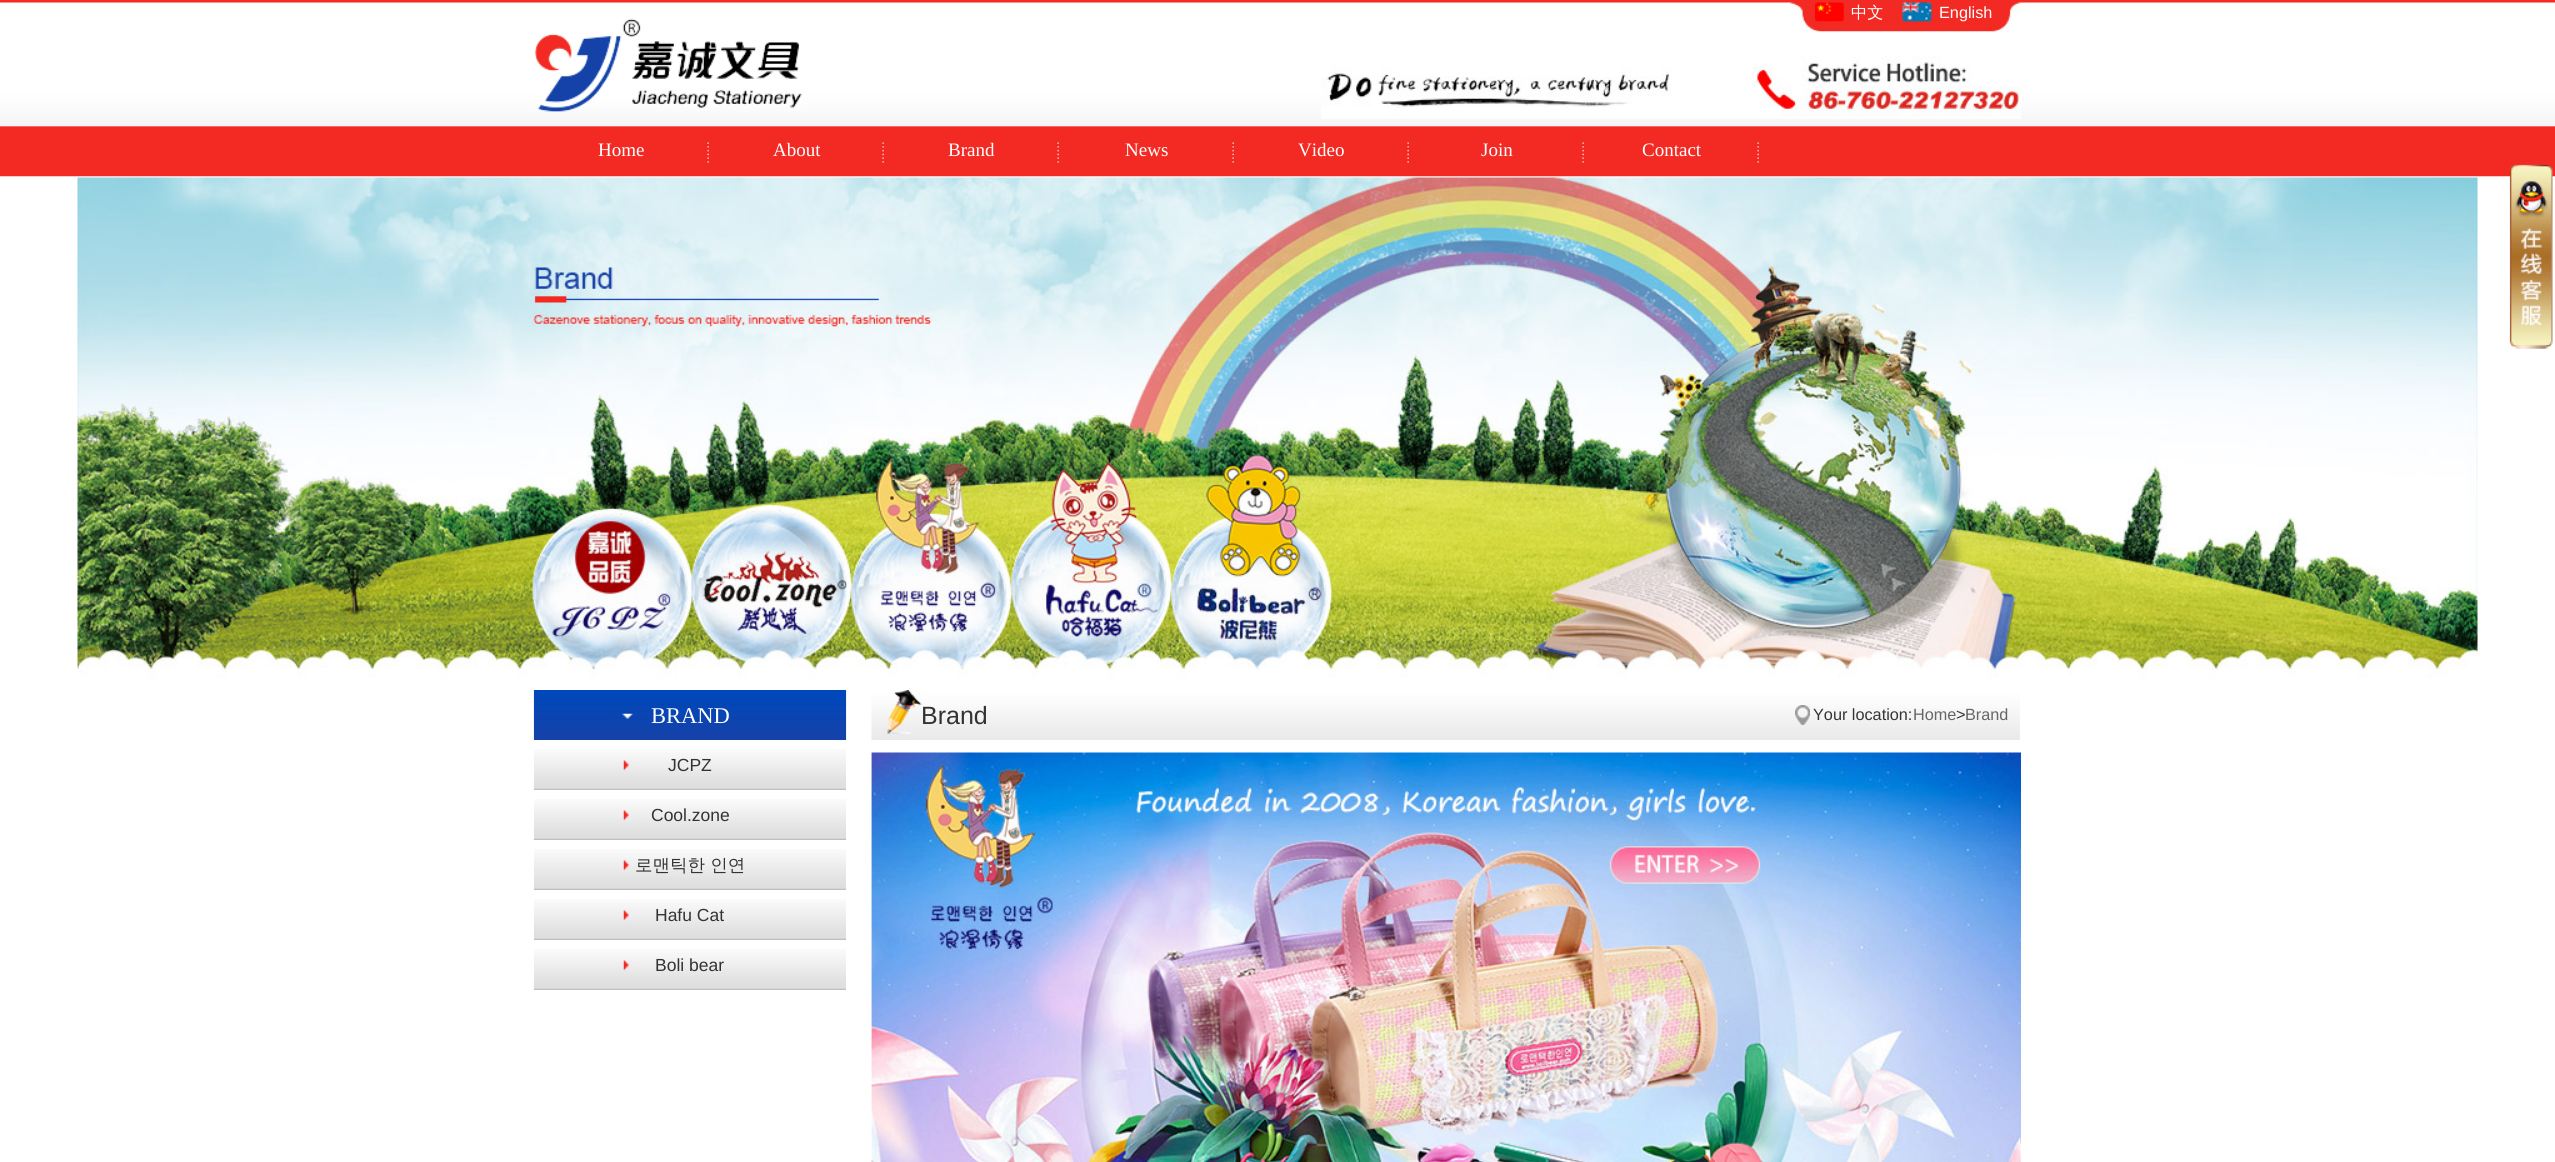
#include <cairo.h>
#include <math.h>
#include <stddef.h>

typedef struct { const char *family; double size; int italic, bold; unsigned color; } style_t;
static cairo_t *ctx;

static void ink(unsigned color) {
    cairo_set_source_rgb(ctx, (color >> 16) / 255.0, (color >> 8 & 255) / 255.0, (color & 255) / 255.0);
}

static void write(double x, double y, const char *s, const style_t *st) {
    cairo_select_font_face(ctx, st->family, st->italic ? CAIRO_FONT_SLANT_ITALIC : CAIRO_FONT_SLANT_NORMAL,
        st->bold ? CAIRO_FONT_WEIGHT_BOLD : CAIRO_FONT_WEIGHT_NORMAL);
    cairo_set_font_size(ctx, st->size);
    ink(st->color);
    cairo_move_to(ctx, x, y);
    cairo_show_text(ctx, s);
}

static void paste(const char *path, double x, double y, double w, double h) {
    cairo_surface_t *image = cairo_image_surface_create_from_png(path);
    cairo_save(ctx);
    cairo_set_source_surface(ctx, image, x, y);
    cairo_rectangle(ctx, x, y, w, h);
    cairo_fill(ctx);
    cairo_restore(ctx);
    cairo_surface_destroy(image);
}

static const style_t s1 = {"WenQuanYi Zen Hei Medium", 16.25, 0, 0, 0xffffff};
static const style_t s2 = {"Liberation Sans", 16.25, 0, 0, 0xffffff};
static const style_t s3 = {"Liberation Serif", 19, 0, 0, 0xffffff};
static const style_t s4 = {"Liberation Serif", 22.5, 0, 0, 0xffffff};
static const style_t s5 = {"Liberation Sans", 17.5, 0, 0, 0x333333};
static const style_t s6 = {"WenQuanYi Zen Hei Medium", 17.5, 0, 0, 0x333333};
static const style_t s7 = {"Liberation Sans", 25, 0, 0, 0x333333};
static const style_t s8 = {"Liberation Sans", 16.25, 0, 0, 0x333333};
static const style_t s9 = {"Liberation Sans", 16.25, 0, 0, 0x666666};

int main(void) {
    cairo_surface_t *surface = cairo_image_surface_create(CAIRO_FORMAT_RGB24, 2555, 1162);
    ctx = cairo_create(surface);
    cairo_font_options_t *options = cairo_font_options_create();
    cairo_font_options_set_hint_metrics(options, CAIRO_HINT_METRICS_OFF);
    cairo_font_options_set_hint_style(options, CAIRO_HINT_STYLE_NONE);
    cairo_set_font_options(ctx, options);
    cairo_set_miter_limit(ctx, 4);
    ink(0xffffff);
    cairo_paint(ctx);
    paste("pic1.png", 0, 0, 2555, 177);
    paste("pic2.png", 1790, 0, 231, 32);
    paste("pic3.png", 1815, 2, 29, 20);
    write(1851, 18, "中文", &s1);
    paste("pic4.png", 1902, 2, 30, 20);
    write(1939, 18, "English", &s2);
    paste("pic5.png", 1321, 56, 700, 63);
    paste("pic6.png", 534, 18, 268, 94);
    paste("pic7.png", 707, 142, 2, 25);
    write(598, 156, "Home", &s3);
    paste("pic7.png", 882, 142, 2, 25);
    write(773, 156, "About", &s3);
    paste("pic7.png", 1057, 142, 2, 25);
    write(948, 156, "Brand", &s3);
    paste("pic7.png", 1232, 142, 2, 25);
    write(1125, 156, "News", &s3);
    paste("pic7.png", 1407, 142, 2, 25);
    write(1298, 156, "Video", &s3);
    paste("pic7.png", 1582, 142, 2, 25);
    write(1481, 156, "Join", &s3);
    paste("pic7.png", 1757, 142, 2, 25);
    write(1642, 156, "Contact", &s3);
    paste("pic8.png", 77, 177, 2401, 501);
    paste("pic9.png", 533, 690, 314, 50);
    write(651, 723, "BRAND", &s4);
    paste("pic10.png", 533, 749, 314, 41);
    write(668, 771, "JCPZ", &s5);
    paste("pic10.png", 533, 799, 314, 41);
    write(651, 821, "Cool.zone", &s5);
    paste("pic10.png", 533, 849, 314, 41);
    write(635, 871, "로맨틱한 인연", &s6);
    paste("pic10.png", 533, 899, 314, 41);
    write(655, 921, "Hafu Cat", &s5);
    paste("pic10.png", 533, 949, 314, 41);
    write(655, 971, "Boli bear", &s5);
    paste("pic11.png", 871, 690, 1149, 50);
    write(921, 724, "Brand", &s7);
    paste("pic12.png", 1795, 705, 15, 20);
    write(1813, 720, "Your location:", &s8);
    write(1913, 720, "Home", &s9);
    write(1956, 720, ">", &s8);
    write(1965, 720, "Brand", &s9);
    paste("pic13.png", 871, 752, 1150, 410);
    paste("pic14.png", 2509, 164, 44, 185);
    cairo_surface_write_to_png(surface, "screenshot.png");
    cairo_font_options_destroy(options);
    cairo_destroy(ctx);
    cairo_surface_destroy(surface);
    return 0;
}
